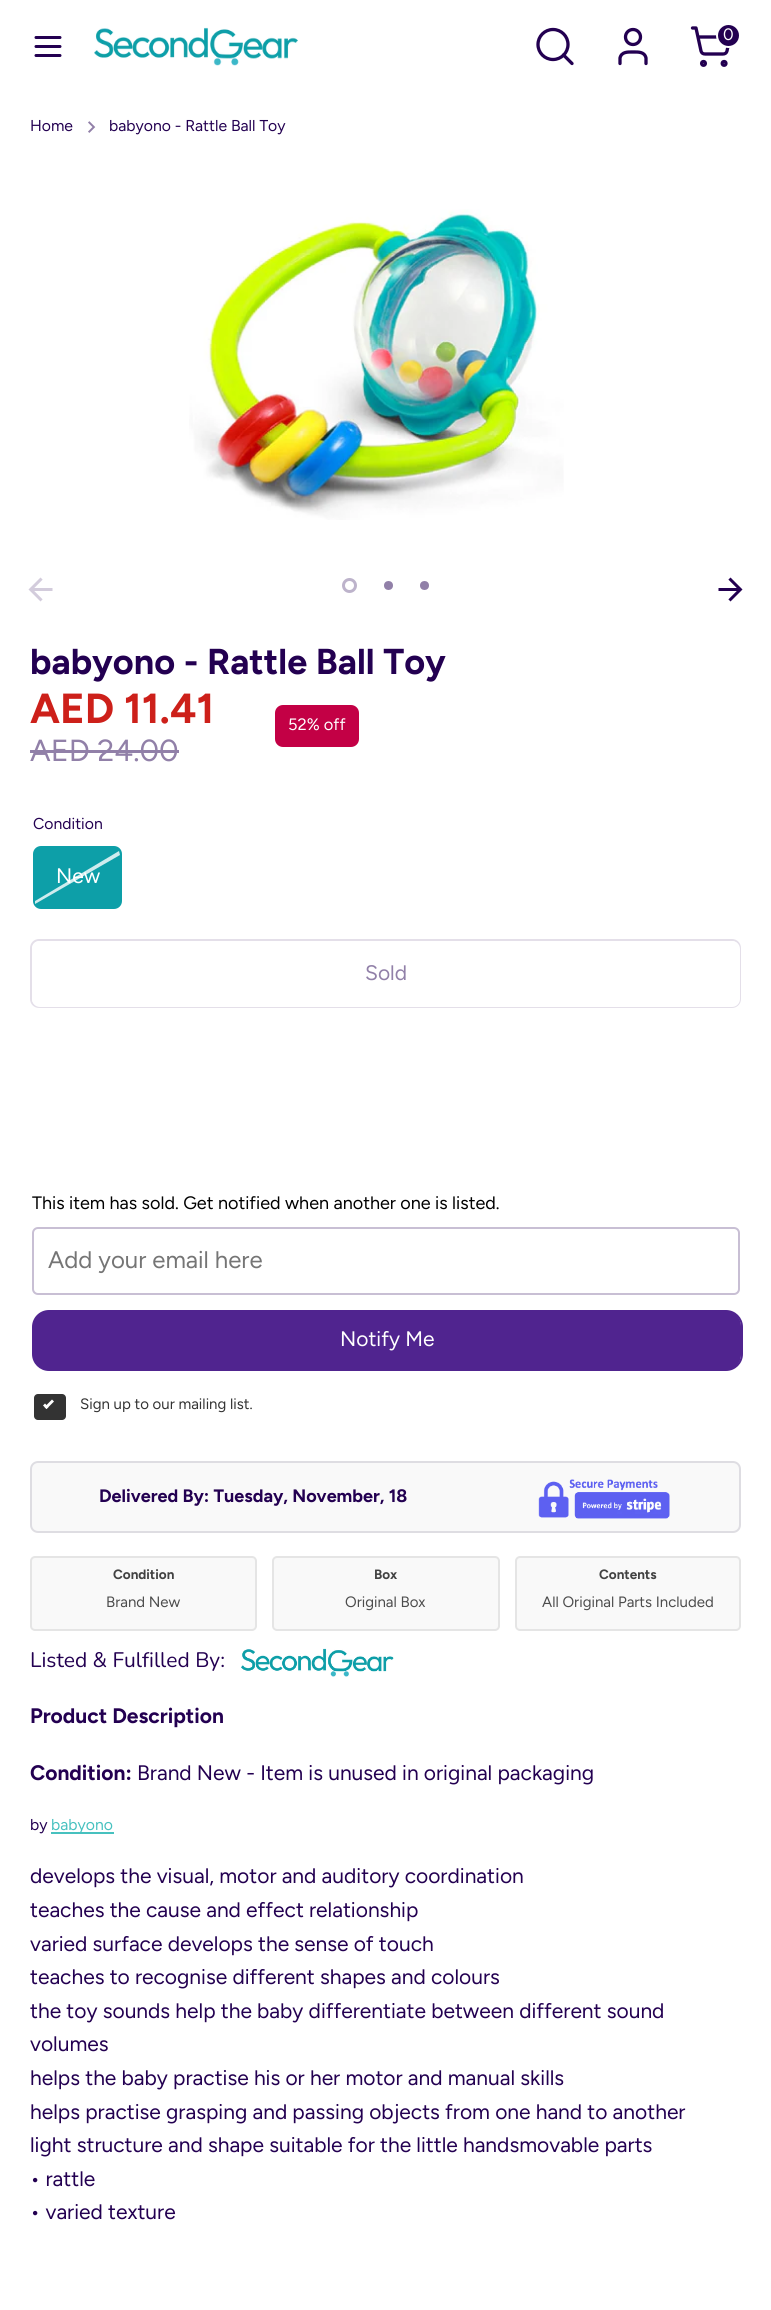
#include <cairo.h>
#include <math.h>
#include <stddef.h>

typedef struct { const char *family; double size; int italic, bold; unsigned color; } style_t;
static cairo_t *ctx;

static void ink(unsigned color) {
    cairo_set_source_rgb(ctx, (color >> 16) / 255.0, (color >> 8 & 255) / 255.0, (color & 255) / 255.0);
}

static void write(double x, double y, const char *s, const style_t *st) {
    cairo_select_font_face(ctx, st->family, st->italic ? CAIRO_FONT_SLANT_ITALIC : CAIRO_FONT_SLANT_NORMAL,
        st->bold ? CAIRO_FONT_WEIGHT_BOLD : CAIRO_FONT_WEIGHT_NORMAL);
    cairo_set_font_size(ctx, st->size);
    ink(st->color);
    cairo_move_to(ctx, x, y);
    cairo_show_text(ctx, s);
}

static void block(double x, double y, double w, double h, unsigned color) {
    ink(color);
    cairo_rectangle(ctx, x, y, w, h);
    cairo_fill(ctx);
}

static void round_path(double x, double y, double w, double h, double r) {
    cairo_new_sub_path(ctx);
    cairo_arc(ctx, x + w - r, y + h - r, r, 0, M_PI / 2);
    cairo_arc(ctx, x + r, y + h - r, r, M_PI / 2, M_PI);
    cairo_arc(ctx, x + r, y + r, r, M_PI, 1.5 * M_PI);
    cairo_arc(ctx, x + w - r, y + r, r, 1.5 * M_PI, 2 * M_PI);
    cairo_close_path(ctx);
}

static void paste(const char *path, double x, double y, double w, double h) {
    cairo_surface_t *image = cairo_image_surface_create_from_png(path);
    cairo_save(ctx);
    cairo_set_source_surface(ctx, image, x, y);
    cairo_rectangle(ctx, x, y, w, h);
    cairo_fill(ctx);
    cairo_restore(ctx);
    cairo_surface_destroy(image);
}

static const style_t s1 = {"Figtree", 16.5, 0, 0, 0xffffff};
static const style_t s2 = {"Figtree", 15.75, 0, 0, 0x230051};
static const style_t s3 = {"Figtree", 36, 0, 1, 0x230051};
static const style_t s4 = {"Figtree", 42, 0, 1, 0xcd201a};
static const style_t s5 = {"Figtree", 30.5, 0, 0, 0x9180a8};
static const style_t s6 = {"Figtree", 21, 0, 0, 0xffffff};
static const style_t s7 = {"Figtree", 21, 0, 0, 0x9180a8};
static const style_t s8 = {"Figtree", 18, 0, 0, 0x000000};
static const style_t s9 = {"Figtree", 24, 0, 0, 0x757575};
static const style_t s10 = {"Figtree", 15, 0, 0, 0x333333};
static const style_t s11 = {"Figtree", 18, 0, 1, 0x230051};
static const style_t s12 = {"Figtree", 13.5, 0, 1, 0x424242};
static const style_t s13 = {"Figtree", 15, 0, 0, 0x4c4c4c};
static const style_t s14 = {"Nunito", 21, 0, 0, 0x230051};
static const style_t s15 = {"Figtree", 21, 0, 1, 0x230051};
static const style_t s16 = {"Figtree", 21, 0, 0, 0x230051};
static const style_t s17 = {"Figtree", 15.75, 0, 0, 0x47c1bf};

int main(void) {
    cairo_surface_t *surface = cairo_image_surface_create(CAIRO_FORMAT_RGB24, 771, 2310);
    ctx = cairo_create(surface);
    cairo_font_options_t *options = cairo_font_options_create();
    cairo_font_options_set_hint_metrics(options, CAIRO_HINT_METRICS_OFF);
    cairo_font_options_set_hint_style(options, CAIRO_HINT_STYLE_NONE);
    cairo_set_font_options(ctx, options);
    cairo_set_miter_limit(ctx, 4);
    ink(0xffffff);
    cairo_paint(ctx);
    paste("pic1.png", 94, 27, 204, 39);
    cairo_arc(ctx, 553, 44.5, 15, 0, 2 * M_PI);
    ink(0x230051);
    cairo_set_line_width(ctx, 3.3);
    cairo_stroke(ctx);
    cairo_new_path(ctx);
    cairo_move_to(ctx, 572, 63.5);
    cairo_line_to(ctx, 563.5, 55);
    cairo_set_line_cap(ctx, CAIRO_LINE_CAP_ROUND);
    cairo_set_line_join(ctx, CAIRO_LINE_JOIN_ROUND);
    cairo_stroke(ctx);
    cairo_new_path(ctx);
    cairo_move_to(ctx, 646, 63.5);
    cairo_line_to(ctx, 646, 58);
    cairo_curve_to(ctx, 644.5, 51.5, 638, 52, 633, 52);
    cairo_curve_to(ctx, 628, 52, 621.5, 51.5, 620, 58);
    cairo_line_to(ctx, 620, 63.5);
    cairo_stroke(ctx);
    cairo_arc(ctx, 633, 37, 7.5, 0, 2 * M_PI);
    cairo_set_line_cap(ctx, CAIRO_LINE_CAP_BUTT);
    cairo_set_line_join(ctx, CAIRO_LINE_JOIN_MITER);
    cairo_stroke(ctx);
    cairo_arc(ctx, 703.5, 63.4, 1.9, 0, 2 * M_PI);
    cairo_stroke(ctx);
    cairo_arc(ctx, 724.1, 63.4, 1.9, 0, 2 * M_PI);
    cairo_stroke(ctx);
    cairo_new_path(ctx);
    cairo_move_to(ctx, 692.5, 28);
    cairo_line_to(ctx, 696, 28);
    cairo_line_to(ctx, 701, 51);
    cairo_curve_to(ctx, 701.5, 53, 703, 54, 705, 54);
    cairo_line_to(ctx, 723, 54);
    cairo_curve_to(ctx, 725, 54, 726.5, 53, 727, 51);
    cairo_line_to(ctx, 730, 37);
    cairo_line_to(ctx, 698, 37);
    cairo_set_line_cap(ctx, CAIRO_LINE_CAP_ROUND);
    cairo_set_line_join(ctx, CAIRO_LINE_JOIN_ROUND);
    cairo_stroke(ctx);
    cairo_arc(ctx, 728.5, 35.5, 11.5, 0, 2 * M_PI);
    cairo_fill_preserve(ctx);
    ink(0xffffff);
    cairo_set_line_width(ctx, 2);
    cairo_set_line_cap(ctx, CAIRO_LINE_CAP_BUTT);
    cairo_set_line_join(ctx, CAIRO_LINE_JOIN_MITER);
    cairo_stroke(ctx);
    write(723, 40, "0", &s1);
    cairo_new_path(ctx);
    cairo_move_to(ctx, 36, 46.5);
    cairo_line_to(ctx, 60, 46.5);
    cairo_move_to(ctx, 36, 37.5);
    cairo_line_to(ctx, 60, 37.5);
    cairo_move_to(ctx, 36, 55.5);
    cairo_line_to(ctx, 60, 55.5);
    ink(0x230051);
    cairo_set_line_width(ctx, 3);
    cairo_set_line_cap(ctx, CAIRO_LINE_CAP_ROUND);
    cairo_set_line_join(ctx, CAIRO_LINE_JOIN_ROUND);
    cairo_stroke(ctx);
    write(30, 131, "Home", &s2);
    paste("pic2.png", 88, 121, 8, 12);
    write(109, 131, "babyono - Rattle Ball Toy", &s2);
    paste("pic3.png", 189, 209, 375, 311);
    paste("pic4.png", 28, 577, 25, 25);
    paste("pic5.png", 718, 577, 25, 25);
    cairo_arc(ctx, 349.5, 585.5, 6, 0, 2 * M_PI);
    ink(0xbdb3cb);
    cairo_set_line_cap(ctx, CAIRO_LINE_CAP_BUTT);
    cairo_set_line_join(ctx, CAIRO_LINE_JOIN_MITER);
    cairo_stroke(ctx);
    ink(0x9180a8);
    cairo_arc(ctx, 388.5, 585.5, 4.5, 0, 2 * M_PI);
    cairo_fill(ctx);
    cairo_arc(ctx, 424.5, 585.5, 4.5, 0, 2 * M_PI);
    cairo_fill(ctx);
    write(30, 674, "babyono - Rattle Ball Toy", &s3);
    write(30, 723, "AED 11.41", &s4);
    write(30, 761, "AED 24.00", &s5);
    block(30, 750, 149, 3, 0x9180a8);
    ink(0xc30045);
    round_path(275, 705, 84, 42, 8);
    cairo_fill(ctx);
    write(288, 730, "52% off", &s1);
    write(33, 829, "Condition", &s2);
    ink(0x0d9fa8);
    round_path(34, 847, 87, 61, 7);
    cairo_fill_preserve(ctx);
    cairo_set_line_width(ctx, 2);
    cairo_stroke(ctx);
    write(56, 883, "New", &s6);
    cairo_set_source_rgba(ctx, 1, 1, 1, 0.8);
    cairo_new_path(ctx);
    cairo_move_to(ctx, 120, 855);
    cairo_line_to(ctx, 35, 904);
    cairo_line_to(ctx, 35, 901);
    cairo_line_to(ctx, 119, 851);
    cairo_close_path(ctx);
    cairo_fill(ctx);
    round_path(31, 940, 709, 67, 8);
    ink(0xe4dfe9);
    cairo_stroke(ctx);
    ink(0xffffff);
    round_path(32, 941, 708, 66, 8);
    cairo_fill(ctx);
    write(365, 980, "Sold", &s7);
    write(32, 1209, "This item has sold. Get notified when another one is listed.", &s8);
    round_path(33, 1228, 706, 66, 5);
    ink(0xc8bfd4);
    cairo_stroke(ctx);
    write(48, 1268, "Add your email here", &s9);
    round_path(33, 1311, 709, 59, 16);
    ink(0x50248f);
    cairo_stroke(ctx);
    round_path(33, 1311, 708, 59, 15);
    cairo_fill(ctx);
    write(340, 1346, "Notify Me", &s6);
    ink(0x333333);
    round_path(33, 1393, 34, 28, 5);
    cairo_fill_preserve(ctx);
    ink(0xffffff);
    cairo_stroke(ctx);
    cairo_new_path(ctx);
    cairo_move_to(ctx, 52, 1399.5);
    cairo_line_to(ctx, 54, 1401.5);
    cairo_line_to(ctx, 46.5, 1409);
    cairo_line_to(ctx, 44.5, 1407);
    cairo_close_path(ctx);
    cairo_fill(ctx);
    cairo_new_path(ctx);
    cairo_move_to(ctx, 45, 1403.5);
    cairo_line_to(ctx, 48.5, 1407);
    cairo_line_to(ctx, 46.5, 1409);
    cairo_line_to(ctx, 43, 1405.5);
    cairo_close_path(ctx);
    cairo_fill(ctx);
    write(80, 1409, "Sign up to our mailing list.", &s10);
    ink(0xf9f9f9);
    round_path(31, 1462, 709, 70, 7);
    cairo_fill_preserve(ctx);
    ink(0xdedde2);
    cairo_stroke(ctx);
    write(99, 1502, "Delivered By: Tuesday, November, 18", &s11);
    paste("pic6.png", 538, 1479, 132, 40);
    ink(0xf9f9f9);
    round_path(31, 1557, 225, 73, 4);
    cairo_fill_preserve(ctx);
    ink(0xe5e5e5);
    cairo_stroke(ctx);
    write(113, 1579, "Condition", &s12);
    write(106, 1607, "Brand New", &s13);
    ink(0xf9f9f9);
    round_path(273, 1557, 226, 73, 4);
    cairo_fill_preserve(ctx);
    ink(0xe5e5e5);
    cairo_stroke(ctx);
    write(374, 1579, "Box", &s12);
    write(345, 1607, "Original Box", &s13);
    ink(0xf9f9f9);
    round_path(516, 1557, 224, 73, 4);
    cairo_fill_preserve(ctx);
    ink(0xe5e5e5);
    cairo_stroke(ctx);
    write(599, 1579, "Contents", &s12);
    write(542, 1607, "All Original Parts Included", &s13);
    write(30, 1667, "Listed & Fulfilled By:", &s14);
    paste("pic7.png", 241, 1648, 153, 29);
    write(30, 1723, "Product Description", &s15);
    write(30, 1780, "Condition:", &s15);
    write(137, 1780, "Brand New - Item is unused in original packaging", &s16);
    write(30, 1830, "by", &s2);
    block(51, 1832, 63, 2, 0x47c1bf);
    write(51, 1830, "babyono", &s17);
    write(30, 1883, "develops the visual, motor and auditory coordination", &s16);
    write(30, 1917, "teaches the cause and effect relationship", &s16);
    write(30, 1951, "varied surface develops the sense of touch", &s16);
    write(30, 1984, "teaches to recognise different shapes and colours", &s16);
    write(30, 2018, "the toy sounds help the baby differentiate between different sound", &s16);
    write(30, 2051, "volumes", &s16);
    write(30, 2085, "helps the baby practise his or her motor and manual skills", &s16);
    write(30, 2119, "helps practise grasping and passing objects from one hand to another", &s16);
    write(30, 2152, "light structure and shape suitable for the little handsmovable parts", &s16);
    write(30, 2186, "• rattle", &s16);
    write(30, 2219, "• varied texture", &s16);
    cairo_surface_write_to_png(surface, "screenshot.png");
    cairo_font_options_destroy(options);
    cairo_destroy(ctx);
    cairo_surface_destroy(surface);
    return 0;
}
